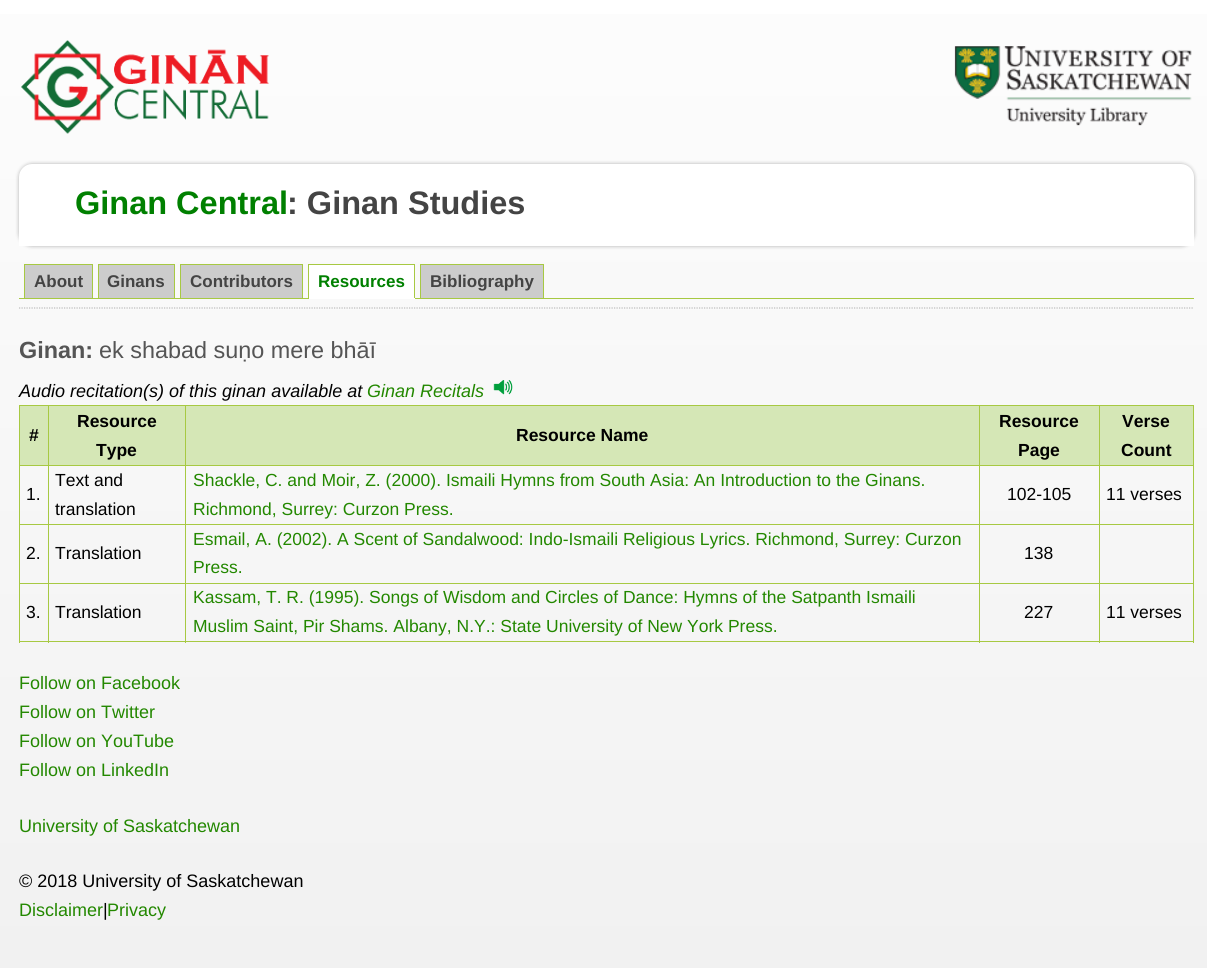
#include <cairo.h>
#include <math.h>
#include <stddef.h>

typedef struct { const char *family; double size; int italic, bold; unsigned color; } style_t;
static cairo_t *ctx;

static void ink(unsigned color) {
    cairo_set_source_rgb(ctx, (color >> 16) / 255.0, (color >> 8 & 255) / 255.0, (color & 255) / 255.0);
}

static void write(double x, double y, const char *s, const style_t *st) {
    cairo_select_font_face(ctx, st->family, st->italic ? CAIRO_FONT_SLANT_ITALIC : CAIRO_FONT_SLANT_NORMAL,
        st->bold ? CAIRO_FONT_WEIGHT_BOLD : CAIRO_FONT_WEIGHT_NORMAL);
    cairo_set_font_size(ctx, st->size);
    ink(st->color);
    cairo_move_to(ctx, x, y);
    cairo_show_text(ctx, s);
}

static void block(double x, double y, double w, double h, unsigned color) {
    ink(color);
    cairo_rectangle(ctx, x, y, w, h);
    cairo_fill(ctx);
}

static void round_path(double x, double y, double w, double h, double r) {
    cairo_new_sub_path(ctx);
    cairo_arc(ctx, x + w - r, y + h - r, r, 0, M_PI / 2);
    cairo_arc(ctx, x + r, y + h - r, r, M_PI / 2, M_PI);
    cairo_arc(ctx, x + r, y + r, r, M_PI, 1.5 * M_PI);
    cairo_arc(ctx, x + w - r, y + r, r, 1.5 * M_PI, 2 * M_PI);
    cairo_close_path(ctx);
}

static void blur_box(double x, double y, double w, double h, double r, double blur, double alpha) {
    cairo_push_group_with_content(ctx, CAIRO_CONTENT_ALPHA);
    cairo_set_operator(ctx, CAIRO_OPERATOR_SOURCE);
    for (int i = 15; i >= -15 && fmin(w, h) + blur * i / 3 > 0; i -= 2) {
        double e = blur * i / 6;
        cairo_set_source_rgba(ctx, 0, 0, 0, alpha * erfc((i - 1) / 8.5) / 2);
        round_path(x - e, y - e, w + 2 * e, h + 2 * e, fmax(0, fmin(r + e + blur * .6, fmin(w, h) / 2 + e)));
        cairo_fill(ctx);
    }
    cairo_pattern_t *soft = cairo_pop_group(ctx);
    cairo_mask(ctx, soft);
    cairo_pattern_destroy(soft);
}

static void paste(const char *path, double x, double y, double w, double h) {
    cairo_surface_t *image = cairo_image_surface_create_from_png(path);
    cairo_save(ctx);
    cairo_set_source_surface(ctx, image, x, y);
    cairo_rectangle(ctx, x, y, w, h);
    cairo_fill(ctx);
    cairo_restore(ctx);
    cairo_surface_destroy(image);
}

static const style_t s1 = {"Liberation Sans", 32.5, 0, 1, 0x008000};
static const style_t s2 = {"Liberation Sans", 32.5, 0, 1, 0x444444};
static const style_t s3 = {"Liberation Sans", 17, 0, 1, 0x444444};
static const style_t s4 = {"Liberation Sans", 17, 0, 1, 0x008000};
static const style_t s5 = {"Liberation Sans", 23.4, 0, 1, 0x555555};
static const style_t s6 = {"Liberation Sans", 23.4, 0, 0, 0x555555};
static const style_t s7 = {"Liberation Sans", 18, 1, 0, 0x000000};
static const style_t s8 = {"Liberation Sans", 18, 1, 0, 0x238800};
static const style_t s9 = {"Liberation Sans", 17.5, 0, 1, 0x000000};
static const style_t s10 = {"Liberation Sans", 17.5, 0, 0, 0x000000};
static const style_t s11 = {"Liberation Sans", 17.5, 0, 0, 0x238800};
static const style_t s12 = {"Liberation Sans", 18, 0, 0, 0x238800};
static const style_t s13 = {"Liberation Sans", 18, 0, 0, 0x000000};

int main(void) {
    cairo_surface_t *surface = cairo_image_surface_create(CAIRO_FORMAT_RGB24, 1207, 968);
    ctx = cairo_create(surface);
    cairo_font_options_t *options = cairo_font_options_create();
    cairo_font_options_set_hint_metrics(options, CAIRO_HINT_METRICS_OFF);
    cairo_font_options_set_hint_style(options, CAIRO_HINT_STYLE_NONE);
    cairo_set_font_options(ctx, options);
    cairo_set_miter_limit(ctx, 4);
    cairo_pattern_t *gradient;
    ink(0xffffff);
    cairo_paint(ctx);
    gradient = cairo_pattern_create_linear(0, 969, 0, -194);
    cairo_pattern_add_color_stop_rgba(gradient, 0, 0.945, 0.945, 0.945, 1);
    cairo_pattern_add_color_stop_rgba(gradient, 1, 1, 1, 1, 1);
    cairo_set_source(ctx, gradient);
    cairo_pattern_destroy(gradient);
    cairo_rectangle(ctx, 0, 14, 1207, 954);
    cairo_fill(ctx);
    paste("pic1.png", 21, 40, 248, 94);
    paste("pic2.png", 954, 46, 238, 80);
    ink(0x000000);
    blur_box(19, 164, 1175, 82, 13, 2, 0.3);
    ink(0xffffff);
    cairo_new_path(ctx);
    cairo_move_to(ctx, 32, 164);
    cairo_line_to(ctx, 1181, 164);
    cairo_curve_to(ctx, 1188, 164, 1194, 170, 1194, 177);
    cairo_line_to(ctx, 1194, 246);
    cairo_line_to(ctx, 19, 246);
    cairo_line_to(ctx, 19, 177);
    cairo_curve_to(ctx, 19, 170, 25, 164, 32, 164);
    cairo_close_path(ctx);
    cairo_fill(ctx);
    write(75, 214, "Ginan Central", &s1);
    write(287, 214, ": Ginan Studies", &s2);
    block(19, 298, 1175, 1, 0xa7c942);
    ink(0xcccccc);
    cairo_rectangle(ctx, 24.5, 264.5, 68, 34);
    cairo_fill_preserve(ctx);
    ink(0xa7c942);
    cairo_set_line_width(ctx, 1);
    cairo_stroke(ctx);
    write(34, 287, "About", &s3);
    ink(0xcccccc);
    cairo_rectangle(ctx, 98.5, 264.5, 76, 34);
    cairo_fill_preserve(ctx);
    ink(0xa7c942);
    cairo_stroke(ctx);
    write(107, 287, "Ginans", &s3);
    ink(0xcccccc);
    cairo_rectangle(ctx, 180.5, 264.5, 122, 34);
    cairo_fill_preserve(ctx);
    ink(0xa7c942);
    cairo_stroke(ctx);
    write(190, 287, "Contributors", &s3);
    block(309, 265, 105, 33, 0xffffff);
    block(308, 264, 107, 1, 0xa7c942);
    block(414, 264, 1, 35, 0xa7c942);
    block(308, 298, 107, 1, 0xffffff);
    block(308, 264, 1, 35, 0xa7c942);
    write(318, 287, "Resources", &s4);
    ink(0xcccccc);
    cairo_rectangle(ctx, 420.5, 264.5, 123, 34);
    cairo_fill_preserve(ctx);
    ink(0xa7c942);
    cairo_stroke(ctx);
    write(430, 287, "Bibliography", &s3);
    cairo_new_path(ctx);
    cairo_move_to(ctx, 19, 308);
    cairo_line_to(ctx, 1194, 308);
    ink(0xbbbbbb);
    cairo_set_line_width(ctx, 1.2);
    cairo_set_dash(ctx, (double[]){1.25, 1.25}, 2, 0);
    cairo_stroke(ctx);
    write(19, 358, "Ginan:", &s5);
    write(99, 358, "ek shabad suṇo mere bhāī", &s6);
    write(19, 397, "Audio recitation(s) of this ginan available at", &s7);
    write(367, 397, "Ginan Recitals", &s8);
    paste("pic3.png", 493, 380, 20, 15);
    block(20, 406, 28, 59, 0xd5e7b6);
    block(1099, 405, 95, 1, 0xa7c942);
    block(1099, 465, 95, 1, 0xa7c942);
    block(1099, 524, 95, 1, 0xa7c942);
    block(1099, 583, 95, 1, 0xa7c942);
    block(1193, 583, 1, 60, 0xa7c942);
    block(1099, 641, 95, 1, 0xa7c942);
    block(1099, 583, 1, 60, 0xa7c942);
    block(979, 583, 121, 1, 0xa7c942);
    block(1099, 524, 1, 60, 0xa7c942);
    block(979, 524, 121, 1, 0xa7c942);
    block(1099, 465, 1, 60, 0xa7c942);
    block(979, 465, 121, 1, 0xa7c942);
    block(1099, 405, 1, 61, 0xa7c942);
    block(979, 405, 121, 1, 0xa7c942);
    block(979, 641, 121, 1, 0xa7c942);
    block(979, 583, 1, 60, 0xa7c942);
    block(185, 583, 795, 1, 0xa7c942);
    block(979, 524, 1, 60, 0xa7c942);
    block(185, 524, 795, 1, 0xa7c942);
    block(979, 465, 1, 60, 0xa7c942);
    block(185, 465, 795, 1, 0xa7c942);
    block(979, 405, 1, 61, 0xa7c942);
    block(185, 405, 795, 1, 0xa7c942);
    block(185, 641, 795, 1, 0xa7c942);
    block(185, 583, 1, 60, 0xa7c942);
    block(48, 583, 138, 1, 0xa7c942);
    block(185, 524, 1, 60, 0xa7c942);
    block(48, 524, 138, 1, 0xa7c942);
    block(185, 465, 1, 60, 0xa7c942);
    block(48, 465, 138, 1, 0xa7c942);
    block(185, 405, 1, 61, 0xa7c942);
    block(48, 405, 138, 1, 0xa7c942);
    block(48, 641, 138, 1, 0xa7c942);
    block(48, 583, 1, 60, 0xa7c942);
    block(19, 583, 30, 1, 0xa7c942);
    block(48, 524, 1, 60, 0xa7c942);
    block(19, 524, 30, 1, 0xa7c942);
    block(48, 465, 1, 60, 0xa7c942);
    block(19, 465, 30, 1, 0xa7c942);
    block(48, 405, 1, 61, 0xa7c942);
    block(19, 405, 30, 1, 0xa7c942);
    block(19, 641, 30, 1, 0xa7c942);
    block(19, 583, 1, 60, 0xa7c942);
    block(19, 524, 1, 60, 0xa7c942);
    block(19, 465, 1, 60, 0xa7c942);
    block(19, 405, 1, 61, 0xa7c942);
    write(29, 441, "#", &s9);
    block(49, 406, 136, 59, 0xd5e7b6);
    write(77, 427, "Resource", &s9);
    write(96, 456, "Type", &s9);
    block(186, 406, 793, 59, 0xd5e7b6);
    write(516, 441, "Resource Name", &s9);
    block(980, 406, 119, 59, 0xd5e7b6);
    write(999, 427, "Resource", &s9);
    write(1018, 456, "Page", &s9);
    block(1100, 406, 93, 59, 0xd5e7b6);
    block(1193, 524, 1, 60, 0xa7c942);
    block(1193, 465, 1, 60, 0xa7c942);
    block(1193, 405, 1, 61, 0xa7c942);
    write(1122, 427, "Verse", &s9);
    write(1121, 456, "Count", &s9);
    write(26, 500, "1.", &s10);
    write(55, 486, "Text and", &s10);
    write(55, 515, "translation", &s10);
    write(193, 486, "Shackle, C. and Moir, Z. (2000). Ismaili Hymns from South Asia: An Introduction to the Ginans.", &s11);
    write(193, 515, "Richmond, Surrey: Curzon Press.", &s11);
    write(1007, 500, "102-105", &s10);
    write(1106, 500, "11 verses", &s10);
    write(26, 559, "2.", &s10);
    write(55, 559, "Translation", &s10);
    write(193, 545, "Esmail, A. (2002). A Scent of Sandalwood: Indo-Ismaili Religious Lyrics. Richmond, Surrey: Curzon", &s11);
    write(193, 573, "Press.", &s11);
    write(1024, 559, "138", &s10);
    write(26, 618, "3.", &s10);
    write(55, 618, "Translation", &s10);
    write(193, 603, "Kassam, T. R. (1995). Songs of Wisdom and Circles of Dance: Hymns of the Satpanth Ismaili", &s11);
    write(193, 632, "Muslim Saint, Pir Shams. Albany, N.Y.: State University of New York Press.", &s11);
    write(1024, 618, "227", &s10);
    write(1106, 618, "11 verses", &s10);
    write(19, 689, "Follow on Facebook", &s12);
    write(19, 718, "Follow on Twitter", &s12);
    write(19, 747, "Follow on YouTube", &s12);
    write(19, 776, "Follow on LinkedIn", &s12);
    write(19, 832, "University of Saskatchewan", &s12);
    write(19, 887, "© 2018 University of Saskatchewan", &s13);
    write(19, 916, "Disclaimer", &s12);
    write(103, 916, "|", &s13);
    write(107, 916, "Privacy", &s12);
    cairo_surface_write_to_png(surface, "screenshot.png");
    cairo_font_options_destroy(options);
    cairo_destroy(ctx);
    cairo_surface_destroy(surface);
    return 0;
}
